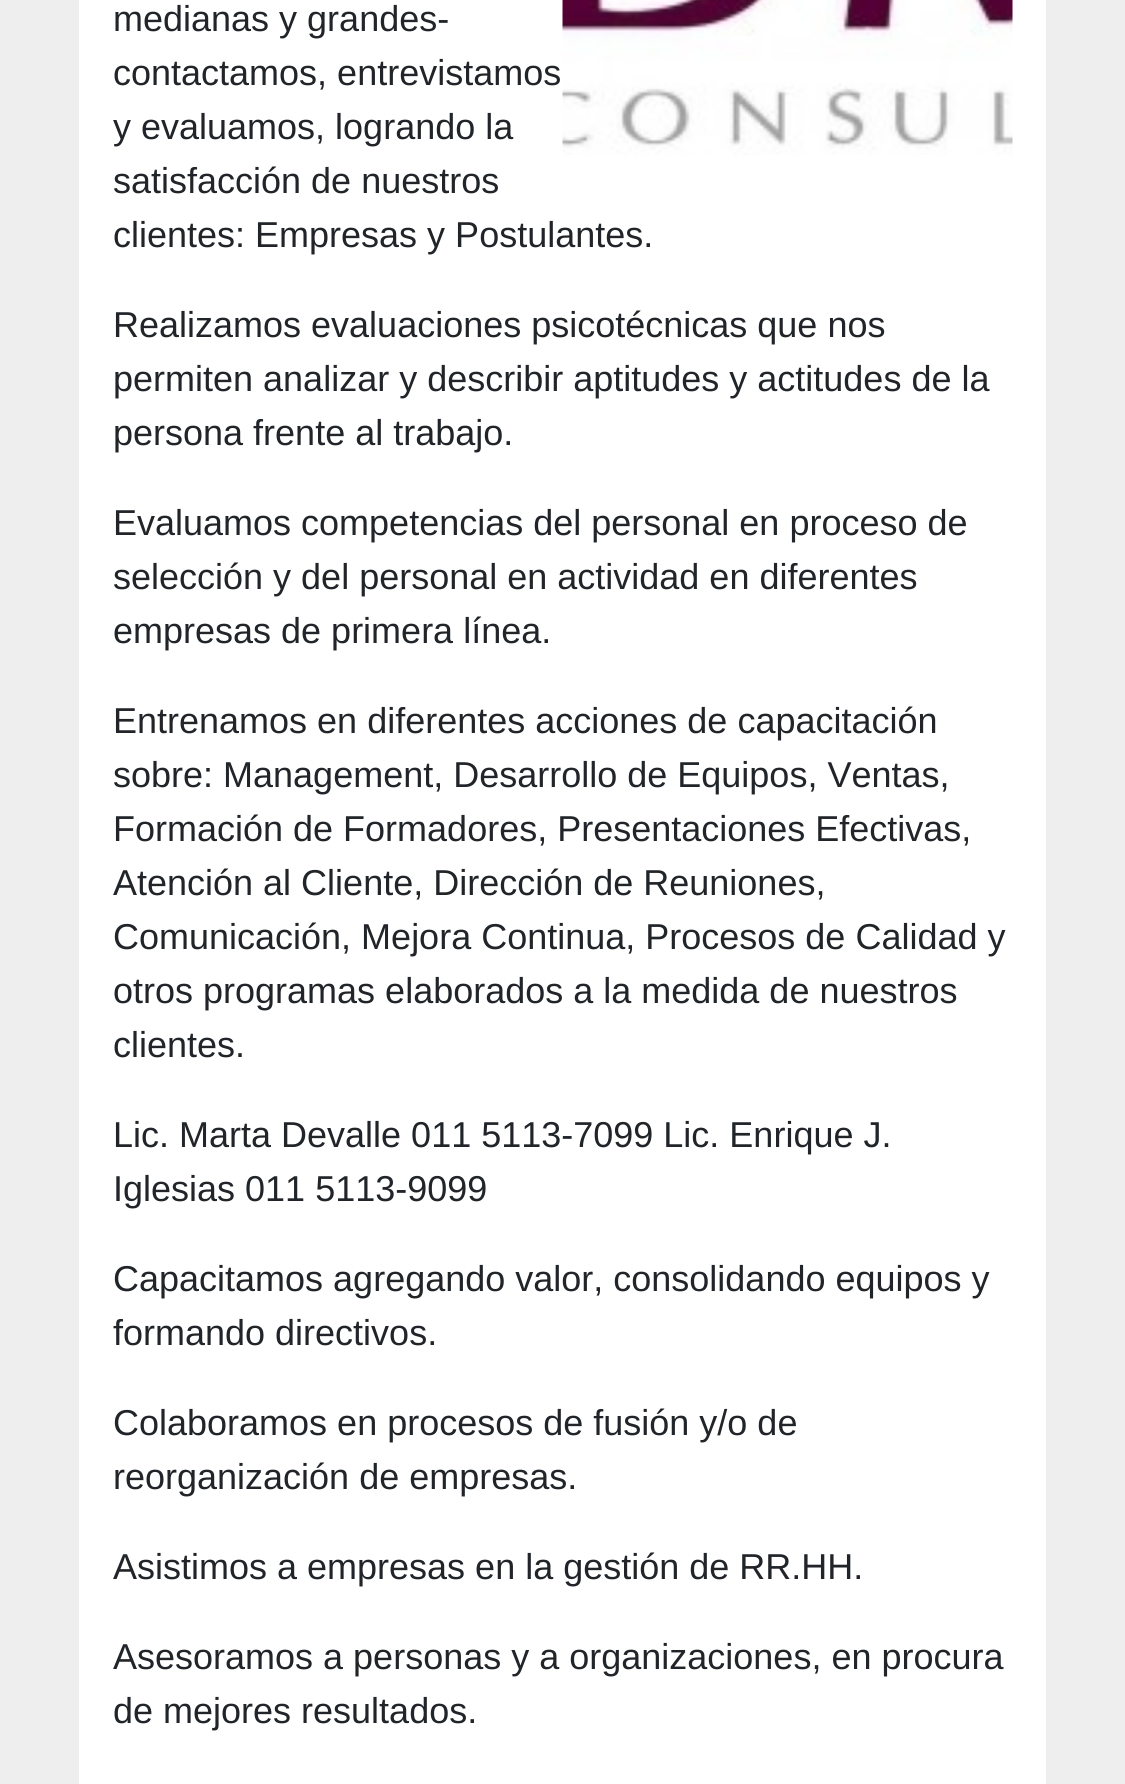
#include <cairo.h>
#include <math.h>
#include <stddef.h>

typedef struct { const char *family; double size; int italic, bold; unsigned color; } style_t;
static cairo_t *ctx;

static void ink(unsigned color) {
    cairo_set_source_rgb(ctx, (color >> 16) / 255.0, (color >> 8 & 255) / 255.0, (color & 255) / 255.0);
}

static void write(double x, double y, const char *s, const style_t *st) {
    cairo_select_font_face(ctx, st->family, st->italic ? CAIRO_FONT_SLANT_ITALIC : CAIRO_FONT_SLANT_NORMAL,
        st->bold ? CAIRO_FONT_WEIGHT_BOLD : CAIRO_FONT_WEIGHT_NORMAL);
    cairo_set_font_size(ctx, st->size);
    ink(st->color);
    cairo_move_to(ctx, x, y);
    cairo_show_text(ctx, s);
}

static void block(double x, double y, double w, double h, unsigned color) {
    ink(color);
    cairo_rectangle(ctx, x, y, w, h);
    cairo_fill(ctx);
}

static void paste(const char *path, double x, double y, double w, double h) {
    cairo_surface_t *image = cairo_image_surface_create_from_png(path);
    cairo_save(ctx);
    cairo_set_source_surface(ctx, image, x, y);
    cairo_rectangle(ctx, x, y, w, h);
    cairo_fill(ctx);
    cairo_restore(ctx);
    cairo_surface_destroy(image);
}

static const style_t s1 = {"Liberation Sans", 36, 0, 0, 0x212529};

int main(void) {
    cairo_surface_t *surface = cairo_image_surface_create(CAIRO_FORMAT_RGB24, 1125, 1784);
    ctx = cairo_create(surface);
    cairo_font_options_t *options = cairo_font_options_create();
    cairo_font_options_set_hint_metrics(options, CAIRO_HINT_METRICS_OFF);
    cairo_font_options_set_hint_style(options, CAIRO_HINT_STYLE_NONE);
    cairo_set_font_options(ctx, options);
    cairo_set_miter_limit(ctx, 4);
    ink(0xeeeeee);
    cairo_paint(ctx);
    block(79, 0, 967, 1784, 0xffffff);
    write(113, 31, "medianas y grandes-", &s1);
    write(113, 85, "contactamos, entrevistamos", &s1);
    write(113, 139, "y evaluamos, logrando la", &s1);
    write(113, 193, "satisfacción de nuestros", &s1);
    write(113, 247, "clientes: Empresas y Postulantes.", &s1);
    paste("pic1.png", 562, 0, 451, 155);
    write(113, 337, "Realizamos evaluaciones psicotécnicas que nos", &s1);
    write(113, 391, "permiten analizar y describir aptitudes y actitudes de la", &s1);
    write(113, 445, "persona frente al trabajo.", &s1);
    write(113, 535, "Evaluamos competencias del personal en proceso de", &s1);
    write(113, 589, "selección y del personal en actividad en diferentes", &s1);
    write(113, 643, "empresas de primera línea.", &s1);
    write(113, 733, "Entrenamos en diferentes acciones de capacitación", &s1);
    write(113, 787, "sobre: Management, Desarrollo de Equipos, Ventas,", &s1);
    write(113, 841, "Formación de Formadores, Presentaciones Efectivas,", &s1);
    write(113, 895, "Atención al Cliente, Dirección de Reuniones,", &s1);
    write(113, 949, "Comunicación, Mejora Continua, Procesos de Calidad y", &s1);
    write(113, 1003, "otros programas elaborados a la medida de nuestros", &s1);
    write(113, 1057, "clientes.", &s1);
    write(113, 1147, "Lic. Marta Devalle 011 5113-7099 Lic. Enrique J.", &s1);
    write(113, 1201, "Iglesias 011 5113-9099", &s1);
    write(113, 1291, "Capacitamos agregando valor, consolidando equipos y", &s1);
    write(113, 1345, "formando directivos.", &s1);
    write(113, 1435, "Colaboramos en procesos de fusión y/o de", &s1);
    write(113, 1489, "reorganización de empresas.", &s1);
    write(113, 1579, "Asistimos a empresas en la gestión de RR.HH.", &s1);
    write(113, 1669, "Asesoramos a personas y a organizaciones, en procura", &s1);
    write(113, 1723, "de mejores resultados.", &s1);
    cairo_surface_write_to_png(surface, "screenshot.png");
    cairo_font_options_destroy(options);
    cairo_destroy(ctx);
    cairo_surface_destroy(surface);
    return 0;
}
